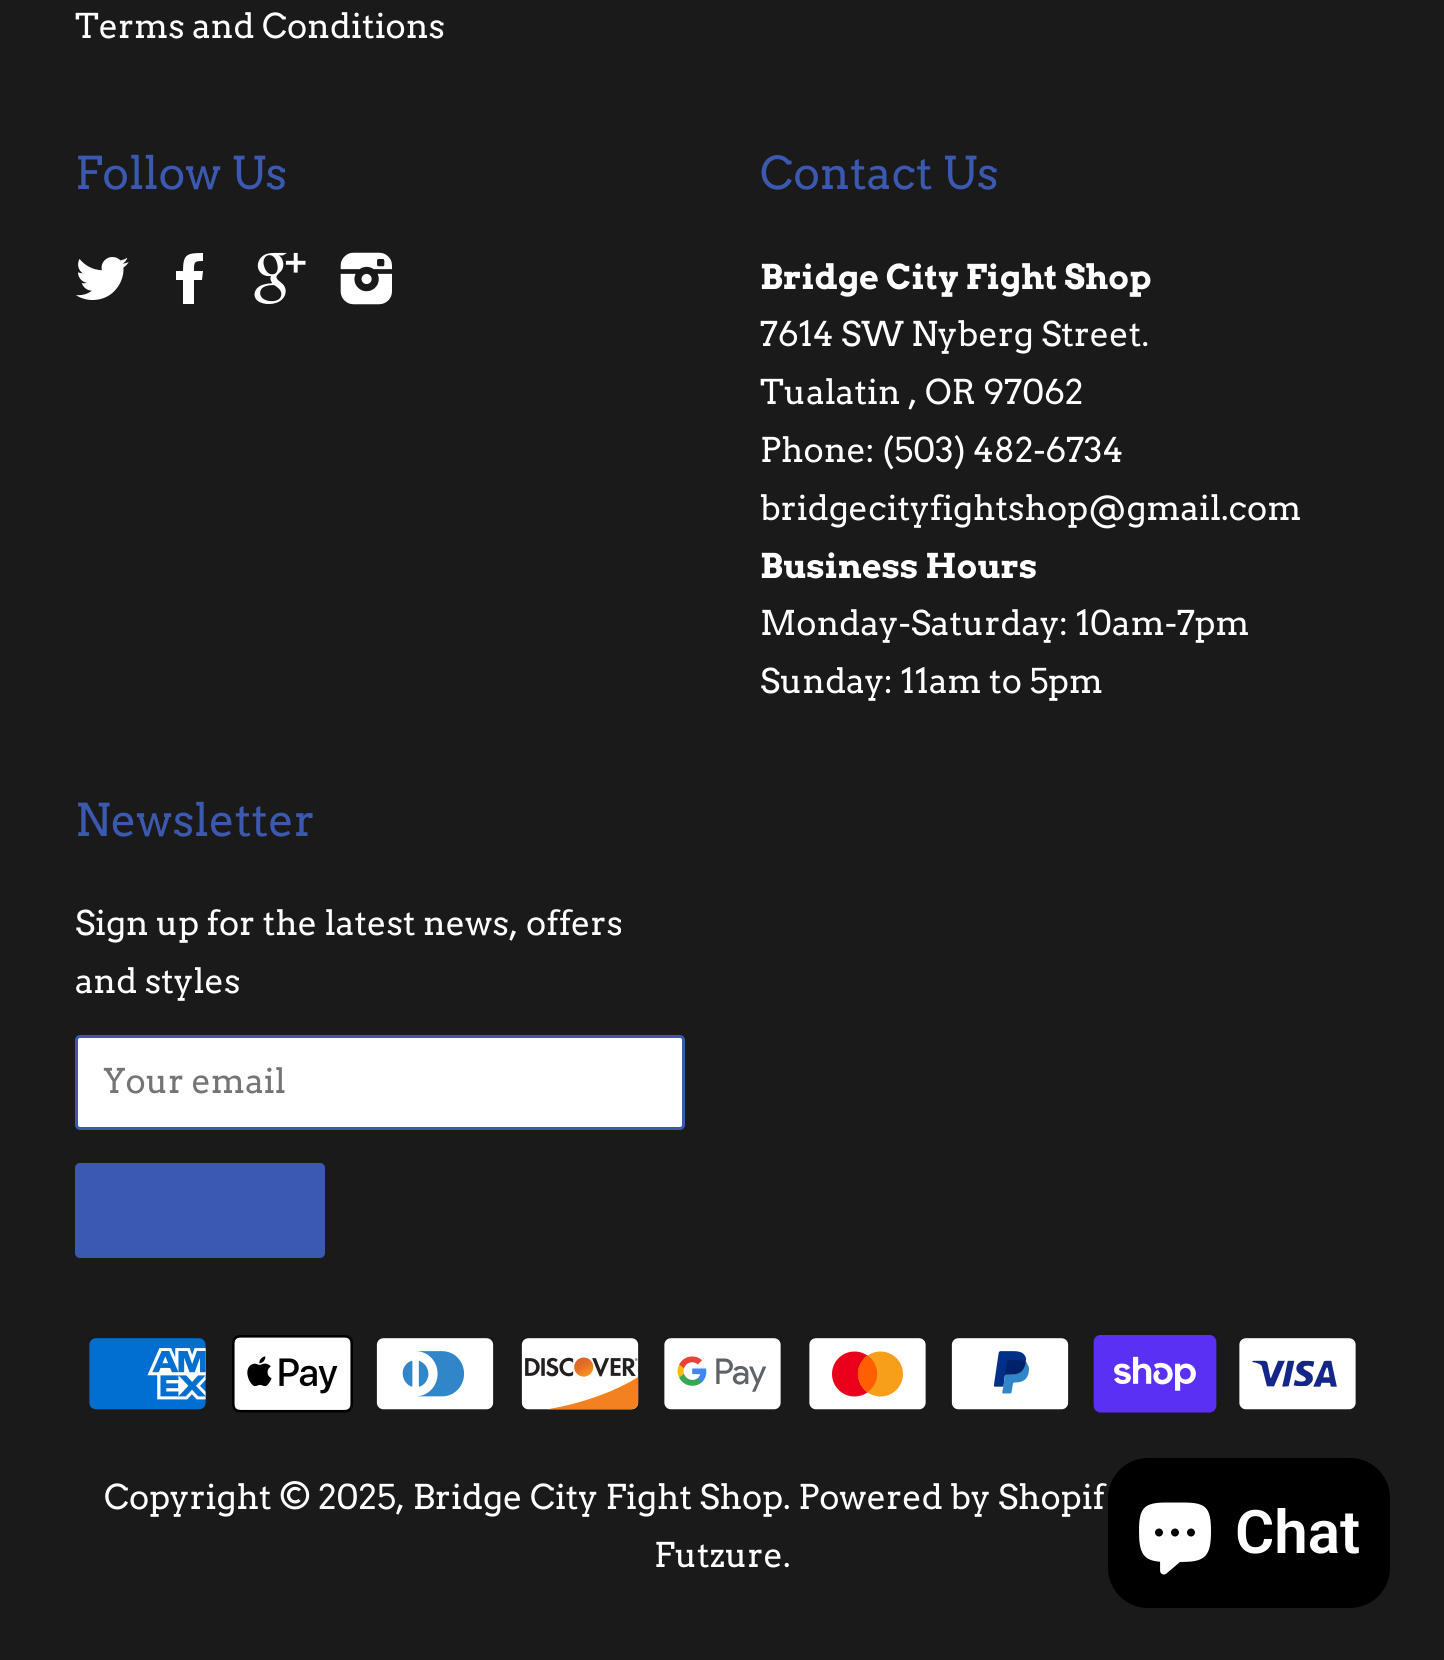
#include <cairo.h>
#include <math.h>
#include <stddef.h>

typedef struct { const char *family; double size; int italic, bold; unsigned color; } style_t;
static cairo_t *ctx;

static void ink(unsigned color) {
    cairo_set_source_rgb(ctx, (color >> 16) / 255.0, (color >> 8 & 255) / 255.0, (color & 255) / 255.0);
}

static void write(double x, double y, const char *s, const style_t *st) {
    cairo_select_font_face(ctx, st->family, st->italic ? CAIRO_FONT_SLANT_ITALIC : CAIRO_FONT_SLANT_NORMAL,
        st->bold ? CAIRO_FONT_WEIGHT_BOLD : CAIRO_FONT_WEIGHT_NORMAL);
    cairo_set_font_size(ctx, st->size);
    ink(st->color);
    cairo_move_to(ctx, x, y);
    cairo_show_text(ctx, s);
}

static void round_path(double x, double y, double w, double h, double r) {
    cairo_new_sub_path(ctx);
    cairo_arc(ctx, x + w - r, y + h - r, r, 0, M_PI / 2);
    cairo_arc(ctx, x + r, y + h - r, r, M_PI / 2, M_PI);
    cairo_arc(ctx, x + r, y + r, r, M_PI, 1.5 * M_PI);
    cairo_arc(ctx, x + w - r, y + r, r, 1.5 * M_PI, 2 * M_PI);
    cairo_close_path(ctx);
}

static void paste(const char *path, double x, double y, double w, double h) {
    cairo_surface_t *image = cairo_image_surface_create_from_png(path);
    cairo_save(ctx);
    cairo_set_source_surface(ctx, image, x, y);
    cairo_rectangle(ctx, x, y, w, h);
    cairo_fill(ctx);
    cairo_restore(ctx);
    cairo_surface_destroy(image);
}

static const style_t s1 = {"Arvo", 34, 0, 0, 0xffffff};
static const style_t s2 = {"Arvo", 45, 0, 0, 0x3b59b1};
static const style_t s3 = {"Arvo", 34, 0, 1, 0xffffff};
static const style_t s4 = {"Arvo", 34, 0, 0, 0x757575};
static const style_t s5 = {"Roboto SemiBold", 60, 0, 0, 0xffffff};

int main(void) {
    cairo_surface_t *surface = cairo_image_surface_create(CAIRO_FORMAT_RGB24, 1444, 1660);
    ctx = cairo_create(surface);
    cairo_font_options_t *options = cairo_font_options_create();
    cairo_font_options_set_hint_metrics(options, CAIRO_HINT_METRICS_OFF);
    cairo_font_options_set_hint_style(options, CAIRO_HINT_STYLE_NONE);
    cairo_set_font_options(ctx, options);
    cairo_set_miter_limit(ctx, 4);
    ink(0x1a1a1a);
    cairo_paint(ctx);
    write(75, 38, "Terms and Conditions", &s1);
    write(75, 189, "Follow Us", &s2);
    paste("pic1.png", 76, 257, 53, 43);
    ink(0xffffff);
    cairo_new_path(ctx);
    cairo_move_to(ctx, 194, 304);
    cairo_line_to(ctx, 194, 280);
    cairo_line_to(ctx, 202, 280);
    cairo_line_to(ctx, 203, 271);
    cairo_line_to(ctx, 194, 271);
    cairo_curve_to(ctx, 194, 262, 194, 261, 203, 261);
    cairo_line_to(ctx, 203, 253);
    cairo_curve_to(ctx, 187, 253, 183, 254, 183, 271);
    cairo_line_to(ctx, 176, 271);
    cairo_line_to(ctx, 176, 280);
    cairo_line_to(ctx, 183, 280);
    cairo_line_to(ctx, 183, 304);
    cairo_close_path(ctx);
    cairo_fill(ctx);
    paste("pic2.png", 254, 252, 52, 52);
    paste("pic3.png", 340, 252, 52, 53);
    write(760, 189, "Contact Us", &s2);
    write(760, 289, "Bridge City Fight Shop", &s3);
    write(760, 346, "7614 SW Nyberg Street.", &s1);
    write(760, 404, "Tualatin , OR 97062", &s1);
    write(760, 462, "Phone: (503) 482-6734", &s1);
    write(760, 520, "bridgecityfightshop@gmail.com", &s1);
    write(760, 578, "Business Hours", &s3);
    write(760, 635, "Monday-Saturday: 10am-7pm", &s1);
    write(760, 693, "Sunday: 11am to 5pm", &s1);
    write(75, 836, "Newsletter", &s2);
    write(75, 935, "Sign up for the latest news, offers", &s1);
    write(75, 993, "and styles", &s1);
    round_path(76.5, 1036.5, 607, 92, 3.5);
    cairo_fill_preserve(ctx);
    ink(0x3b59b1);
    cairo_set_line_width(ctx, 3);
    cairo_stroke(ctx);
    write(103, 1093, "Your email", &s4);
    ink(0x3b59b1);
    round_path(75, 1163, 250, 95, 5);
    cairo_fill(ctx);
    paste("pic4.png", 89, 1338, 117, 72);
    paste("pic5.png", 232, 1335, 121, 78);
    paste("pic6.png", 376, 1338, 118, 72);
    paste("pic7.png", 521, 1338, 118, 72);
    paste("pic8.png", 664, 1338, 117, 72);
    paste("pic9.png", 809, 1338, 117, 72);
    paste("pic10.png", 951, 1338, 118, 72);
    paste("pic11.png", 1093, 1335, 124, 78);
    paste("pic12.png", 1239, 1338, 117, 72);
    write(104, 1509, "Copyright © 2025, Bridge City Fight Shop. Powered by Shopif", &s1);
    write(654, 1567, "Futzure.", &s1);
    ink(0x000000);
    round_path(1108, 1458, 282, 150, 40);
    cairo_fill(ctx);
    paste("pic13.png", 1139, 1502, 72, 73);
    write(1235, 1553, "Chat", &s5);
    cairo_surface_write_to_png(surface, "screenshot.png");
    cairo_font_options_destroy(options);
    cairo_destroy(ctx);
    cairo_surface_destroy(surface);
    return 0;
}
